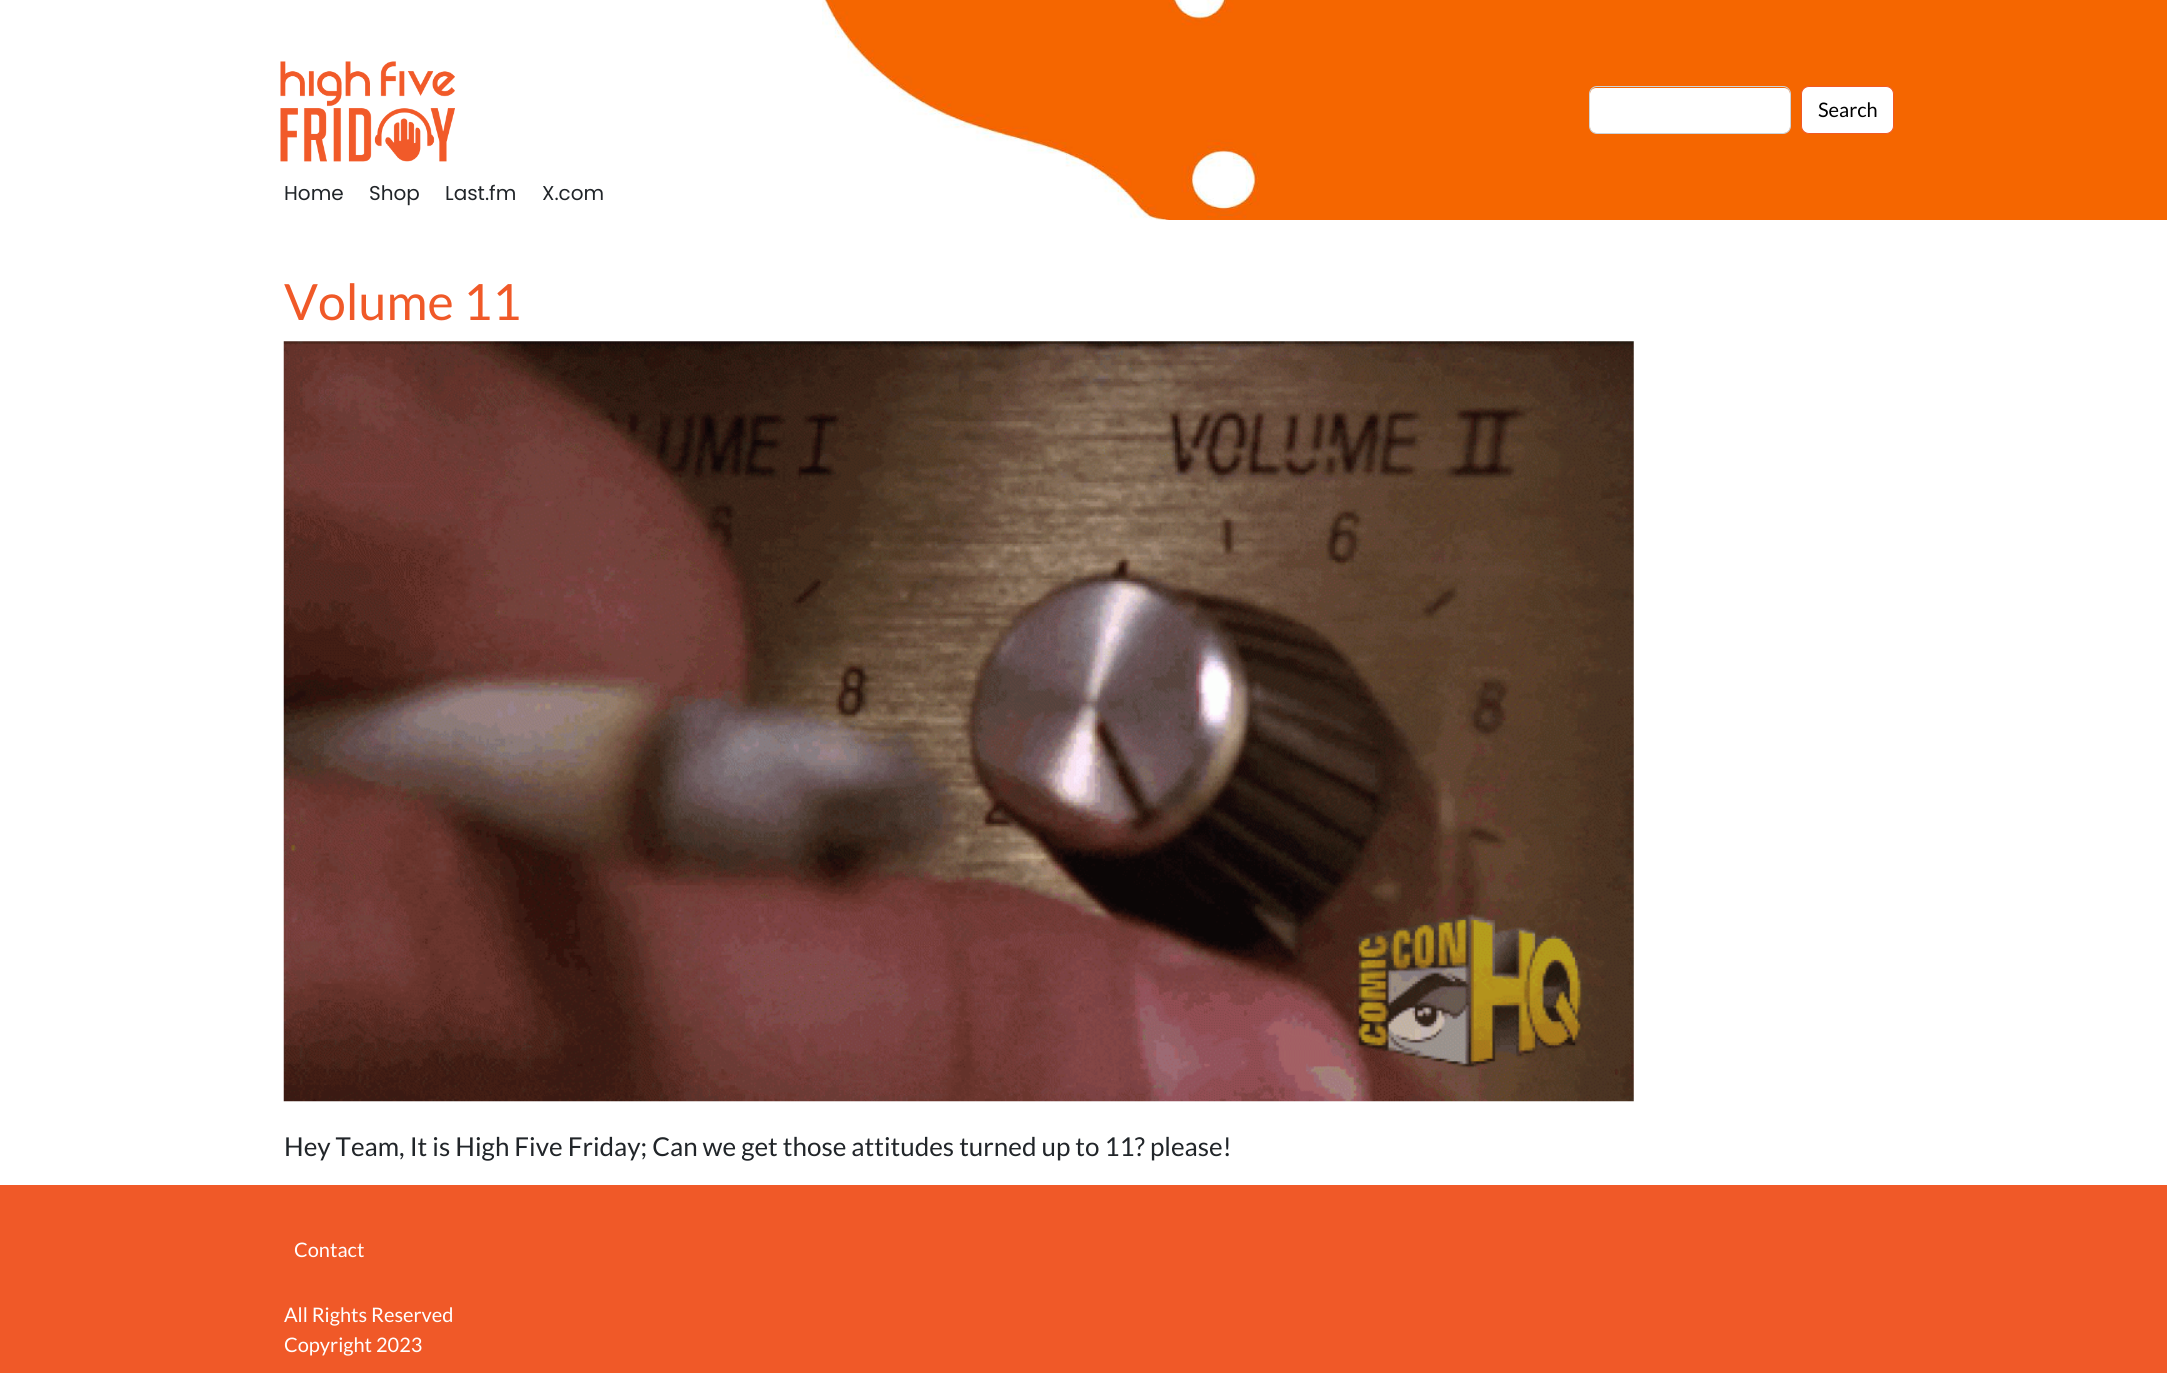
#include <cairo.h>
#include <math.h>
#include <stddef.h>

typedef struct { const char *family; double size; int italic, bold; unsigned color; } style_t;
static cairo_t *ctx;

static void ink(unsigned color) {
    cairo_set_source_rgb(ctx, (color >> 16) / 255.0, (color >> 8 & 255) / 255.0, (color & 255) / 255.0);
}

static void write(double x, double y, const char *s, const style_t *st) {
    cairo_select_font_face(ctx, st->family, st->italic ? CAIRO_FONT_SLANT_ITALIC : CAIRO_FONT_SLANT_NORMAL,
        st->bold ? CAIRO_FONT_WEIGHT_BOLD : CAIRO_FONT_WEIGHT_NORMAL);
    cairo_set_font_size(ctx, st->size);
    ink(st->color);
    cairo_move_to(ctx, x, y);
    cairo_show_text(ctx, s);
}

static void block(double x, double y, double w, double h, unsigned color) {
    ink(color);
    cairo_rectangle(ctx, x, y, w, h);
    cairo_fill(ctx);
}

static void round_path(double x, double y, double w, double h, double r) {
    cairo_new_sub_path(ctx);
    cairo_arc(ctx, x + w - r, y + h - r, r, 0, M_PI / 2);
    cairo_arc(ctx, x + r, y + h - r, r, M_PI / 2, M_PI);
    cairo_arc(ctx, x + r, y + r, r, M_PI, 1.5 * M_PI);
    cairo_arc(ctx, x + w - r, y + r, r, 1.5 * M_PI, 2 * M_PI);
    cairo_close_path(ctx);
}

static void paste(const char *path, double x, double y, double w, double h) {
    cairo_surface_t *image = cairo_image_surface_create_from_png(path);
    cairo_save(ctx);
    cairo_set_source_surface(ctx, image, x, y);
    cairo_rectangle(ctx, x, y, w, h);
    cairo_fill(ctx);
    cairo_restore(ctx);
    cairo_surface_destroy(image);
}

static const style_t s1 = {"Lato", 20, 0, 0, 0x000000};
static const style_t s2 = {"Poppins", 20, 0, 0, 0x212529};
static const style_t s3 = {"Lato", 50, 0, 0, 0xf05928};
static const style_t s4 = {"Lato", 26, 0, 0, 0x212529};
static const style_t s5 = {"Lato", 20, 0, 0, 0xffffff};

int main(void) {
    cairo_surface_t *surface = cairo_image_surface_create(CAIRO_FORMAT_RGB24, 2167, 1373);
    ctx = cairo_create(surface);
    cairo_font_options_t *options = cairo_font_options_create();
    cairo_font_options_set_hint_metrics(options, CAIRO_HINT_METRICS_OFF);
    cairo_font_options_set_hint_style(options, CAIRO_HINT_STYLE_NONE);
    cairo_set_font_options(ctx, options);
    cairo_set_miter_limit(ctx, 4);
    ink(0xffffff);
    cairo_paint(ctx);
    paste("pic1.png", 822, 0, 1345, 220);
    paste("pic2.png", 280, 61, 175, 101);
    ink(0xffffff);
    round_path(1590, 88, 200, 45, 6);
    cairo_fill(ctx);
    round_path(1589.5, 86.5, 201, 47, 7.5);
    ink(0xced4da);
    cairo_set_line_width(ctx, 1);
    cairo_stroke(ctx);
    ink(0xffffff);
    round_path(1801.5, 86.5, 92, 47, 7.5);
    cairo_fill_preserve(ctx);
    ink(0xf05928);
    cairo_stroke(ctx);
    write(1818, 117, "Search", &s1);
    write(284, 200, "Home", &s2);
    write(369, 200, "Shop", &s2);
    write(445, 200, "Last.fm", &s2);
    write(542, 200, "X.com", &s2);
    write(284, 320, "Volume 11", &s3);
    paste("pic3.png", 283, 341, 1351, 761);
    write(284, 1156, "Hey Team, It is High Five Friday; Can we get those attitudes turned up to 11? please!", &s4);
    block(0, 1185, 2167, 188, 0xf05928);
    write(294, 1257, "Contact", &s5);
    write(284, 1322, "All Rights Reserved", &s5);
    write(284, 1352, "Copyright 2023", &s5);
    cairo_surface_write_to_png(surface, "screenshot.png");
    cairo_font_options_destroy(options);
    cairo_destroy(ctx);
    cairo_surface_destroy(surface);
    return 0;
}
